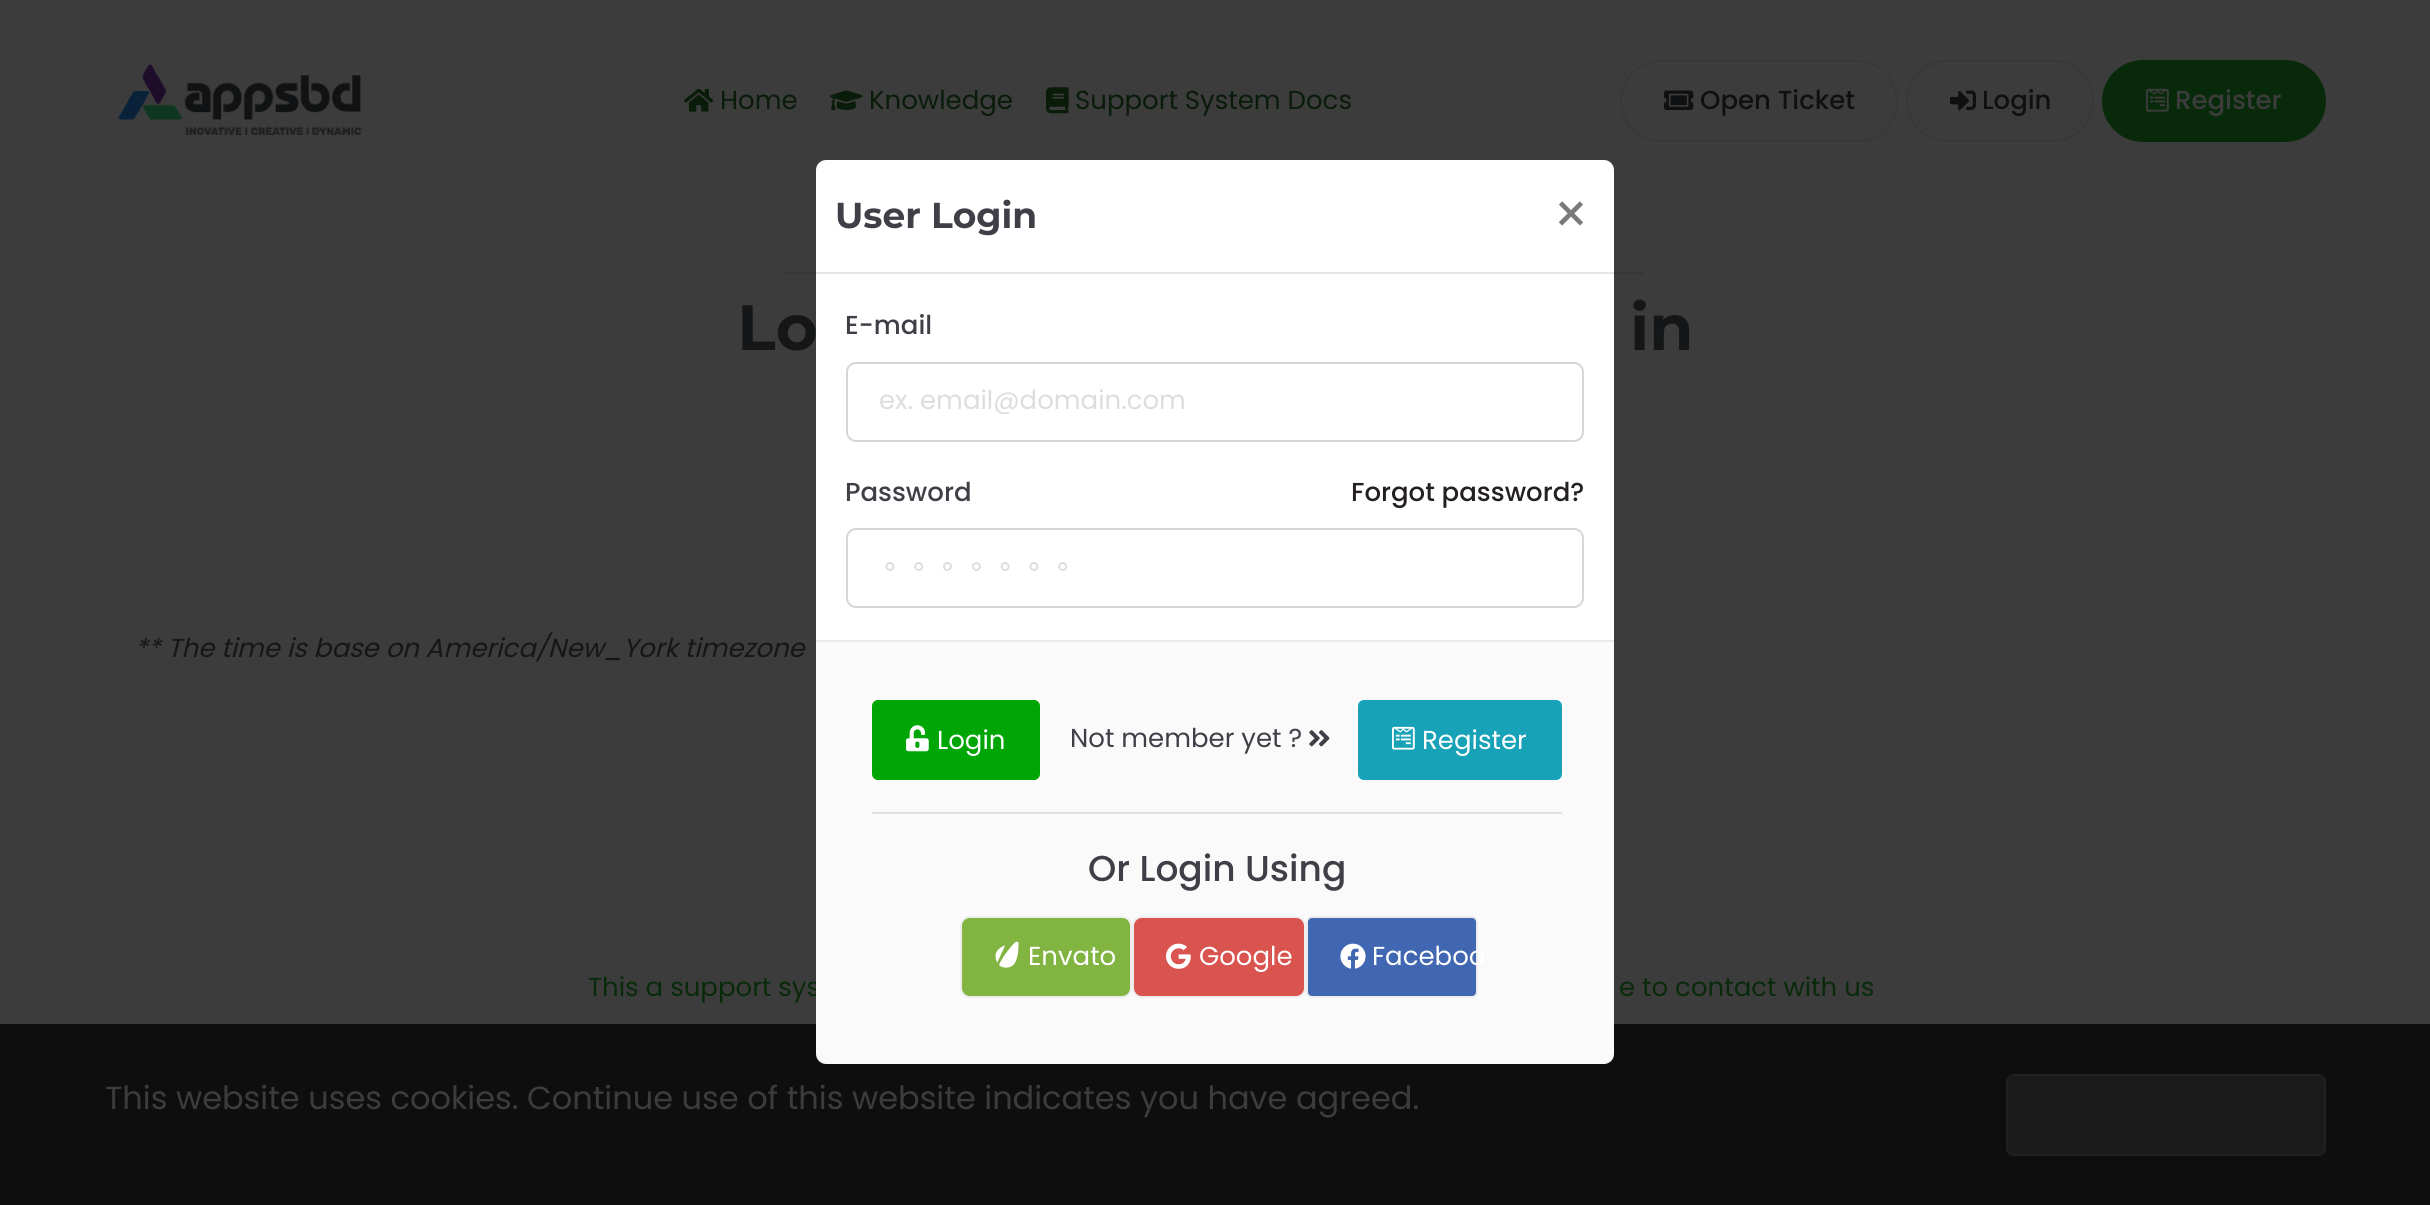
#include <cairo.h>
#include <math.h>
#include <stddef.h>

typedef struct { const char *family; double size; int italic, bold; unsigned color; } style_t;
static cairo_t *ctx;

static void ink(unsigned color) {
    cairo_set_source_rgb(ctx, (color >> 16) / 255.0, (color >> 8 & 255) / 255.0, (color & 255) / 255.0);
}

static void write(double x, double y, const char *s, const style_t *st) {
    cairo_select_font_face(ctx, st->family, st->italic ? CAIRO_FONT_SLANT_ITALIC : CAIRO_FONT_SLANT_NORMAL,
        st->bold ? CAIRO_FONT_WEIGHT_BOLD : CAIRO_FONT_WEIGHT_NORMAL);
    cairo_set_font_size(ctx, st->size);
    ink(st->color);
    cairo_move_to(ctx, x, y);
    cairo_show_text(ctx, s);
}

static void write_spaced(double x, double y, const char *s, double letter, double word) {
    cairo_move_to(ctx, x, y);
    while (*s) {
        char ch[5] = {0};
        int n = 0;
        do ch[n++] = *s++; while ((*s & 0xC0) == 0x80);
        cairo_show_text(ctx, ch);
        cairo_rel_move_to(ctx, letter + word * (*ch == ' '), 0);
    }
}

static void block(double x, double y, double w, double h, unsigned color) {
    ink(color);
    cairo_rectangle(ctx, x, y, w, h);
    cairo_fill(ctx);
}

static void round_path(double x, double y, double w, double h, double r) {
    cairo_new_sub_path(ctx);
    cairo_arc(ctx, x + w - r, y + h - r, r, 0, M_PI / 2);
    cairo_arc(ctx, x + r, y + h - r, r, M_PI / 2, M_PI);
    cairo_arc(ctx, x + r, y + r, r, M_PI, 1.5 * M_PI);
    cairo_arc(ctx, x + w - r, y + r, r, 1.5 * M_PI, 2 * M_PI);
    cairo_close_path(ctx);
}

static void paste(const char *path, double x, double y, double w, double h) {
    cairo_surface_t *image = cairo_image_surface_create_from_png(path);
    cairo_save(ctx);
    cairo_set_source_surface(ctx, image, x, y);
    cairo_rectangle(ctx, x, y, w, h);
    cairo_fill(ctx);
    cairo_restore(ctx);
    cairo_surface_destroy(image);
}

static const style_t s1 = {"Poppins", 26, 0, 0, 0x091b09};
static const style_t s2 = {"Poppins Medium", 26, 0, 0, 0x0f1011};
static const style_t s3 = {"Poppins Medium", 26, 0, 0, 0x3c3c3c};
static const style_t s4 = {"Poppins", 26, 0, 0, 0x092a0a};
static const style_t s5 = {"Montserrat", 36, 0, 1, 0x3f4047};
static const style_t s6 = {"Poppins Medium", 26, 0, 0, 0x3f4047};
static const style_t s7 = {"Poppins", 26, 0, 0, 0xdedddc};
static const style_t s8 = {"Poppins Medium", 26, 0, 0, 0x242022};
static const style_t s9 = {"Poppins", 26, 0, 0, 0xffffff};
static const style_t s10 = {"Poppins", 26, 0, 0, 0x3f4047};
static const style_t s11 = {"Poppins Medium", 36, 0, 0, 0x3f4047};
static const style_t s12 = {"Poppins", 56, 0, 0, 0x7a7a7a};
static const style_t s13 = {"Montserrat", 64, 0, 1, 0x151617};
static const style_t s14 = {"Poppins", 26, 1, 0, 0x151617};
static const style_t s15 = {"Poppins", 32, 0, 0, 0x3c3c3c};

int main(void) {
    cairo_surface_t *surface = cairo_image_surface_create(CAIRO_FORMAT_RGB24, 2430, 1205);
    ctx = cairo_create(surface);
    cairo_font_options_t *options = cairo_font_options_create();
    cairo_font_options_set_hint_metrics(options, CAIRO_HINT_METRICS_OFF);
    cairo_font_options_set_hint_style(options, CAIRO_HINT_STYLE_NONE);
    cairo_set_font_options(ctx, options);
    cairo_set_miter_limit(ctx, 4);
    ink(0x3c3c3c);
    cairo_paint(ctx);
    block(786, 272, 858, 2, 0x363636);
    block(0, 1024, 2430, 181, 0x0e0e0e);
    paste("pic1.png", 118, 64, 244, 71);
    paste("pic2.png", 684, 88, 30, 24);
    write(720, 109, "Home", &s1);
    paste("pic3.png", 830, 90, 33, 20);
    write(869, 109, "Knowledge", &s1);
    paste("pic4.png", 1046, 87, 23, 27);
    write(1075, 109, "Support System Docs", &s1);
    round_path(1621, 61, 276, 80, 40);
    ink(0x383838);
    cairo_stroke(ctx);
    paste("pic5.png", 1664, 90, 30, 20);
    write(1700, 109, "Open Ticket", &s2);
    round_path(1907, 61, 186, 80, 40);
    ink(0x383838);
    cairo_stroke(ctx);
    paste("pic6.png", 1950, 90, 26, 21);
    write(1982, 109, "Login", &s2);
    ink(0x092a0a);
    round_path(2103, 61, 222, 80, 40);
    cairo_fill_preserve(ctx);
    cairo_stroke(ctx);
    paste("pic7.png", 2146, 88, 23, 24);
    write(2175, 109, "Register", &s3);
    write(588, 996, "This a support sys", &s4);
    ink(0xffffff);
    round_path(816, 160, 798, 894, 10);
    cairo_fill(ctx);
    block(816, 272, 798, 2, 0xe6e6e6);
    write(835, 228, "User Login", &s5);
    write(845, 334, "E-mail", &s6);
    round_path(847, 363, 736, 78, 9);
    ink(0xd3d7da);
    cairo_stroke(ctx);
    write(879, 409, "ex. email@domain.com", &s7);
    write(845, 501, "Password", &s6);
    write(1351, 501, "Forgot password?", &s8);
    round_path(847, 529, 736, 78, 9);
    ink(0xd3d7da);
    cairo_stroke(ctx);
    cairo_select_font_face(ctx, "DejaVu Sans", CAIRO_FONT_SLANT_NORMAL, CAIRO_FONT_WEIGHT_NORMAL);
    ink(0xdedddc);
    write_spaced(879, 576, "⚬ ⚬ ⚬ ⚬ ⚬ ⚬ ⚬", 0, -1.25);
    ink(0xfafafa);
    cairo_new_path(ctx);
    cairo_move_to(ctx, 816, 640);
    cairo_line_to(ctx, 1614, 640);
    cairo_line_to(ctx, 1614, 1054);
    cairo_curve_to(ctx, 1614, 1059.5, 1609.5, 1064, 1604, 1064);
    cairo_line_to(ctx, 826, 1064);
    cairo_curve_to(ctx, 820.5, 1064, 816, 1059.5, 816, 1054);
    cairo_close_path(ctx);
    cairo_fill(ctx);
    block(816, 640, 798, 2, 0xeaeaea);
    ink(0x00a606);
    round_path(873, 701, 166, 78, 5);
    cairo_fill_preserve(ctx);
    cairo_stroke(ctx);
    paste("pic8.png", 906, 725, 23, 27);
    write(937, 749, "Login", &s9);
    write(1070, 747, "Not member yet ?", &s10);
    paste("pic9.png", 1309, 730, 21, 17);
    ink(0x17a2b8);
    round_path(1359, 701, 202, 78, 5);
    cairo_fill_preserve(ctx);
    cairo_stroke(ctx);
    paste("pic10.png", 1392, 726, 23, 24);
    write(1422, 749, "Register", &s9);
    block(872, 812, 690, 2, 0xe1e1e1);
    write(1088, 881, "Or Login Using", &s11);
    ink(0x81b441);
    round_path(961, 917, 170, 80, 9);
    cairo_fill_preserve(ctx);
    ink(0xededed);
    cairo_stroke(ctx);
    paste("pic11.png", 995, 941, 24, 27);
    write(1028, 965, "Envato", &s9);
    ink(0xd9534f);
    round_path(1133, 917, 172, 80, 9);
    cairo_fill_preserve(ctx);
    ink(0xededed);
    cairo_stroke(ctx);
    paste("pic12.png", 1166, 943, 25, 26);
    write(1199, 965, "Google", &s9);
    ink(0x4267b2);
    round_path(1307, 917, 170, 80, 5);
    cairo_fill_preserve(ctx);
    ink(0xededed);
    cairo_stroke(ctx);
    paste("pic13.png", 1340, 943, 26, 26);
    write(1372, 965, "Faceboo", &s9);
    write(1553, 234, "×", &s12);
    write(737, 350, "Lo", &s13);
    write(1630, 350, "in", &s13);
    write(135, 657, "** The time is base on America/New_York timezone", &s14);
    write(1619, 996, "e to contact with us", &s4);
    write(105, 1109, "This website uses cookies. Continue use of this website indicates you have agreed.", &s15);
    ink(0x1a1a1a);
    round_path(2007, 1075, 318, 80, 7);
    cairo_fill_preserve(ctx);
    ink(0x1e2022);
    cairo_stroke(ctx);
    cairo_surface_write_to_png(surface, "screenshot.png");
    cairo_font_options_destroy(options);
    cairo_destroy(ctx);
    cairo_surface_destroy(surface);
    return 0;
}
